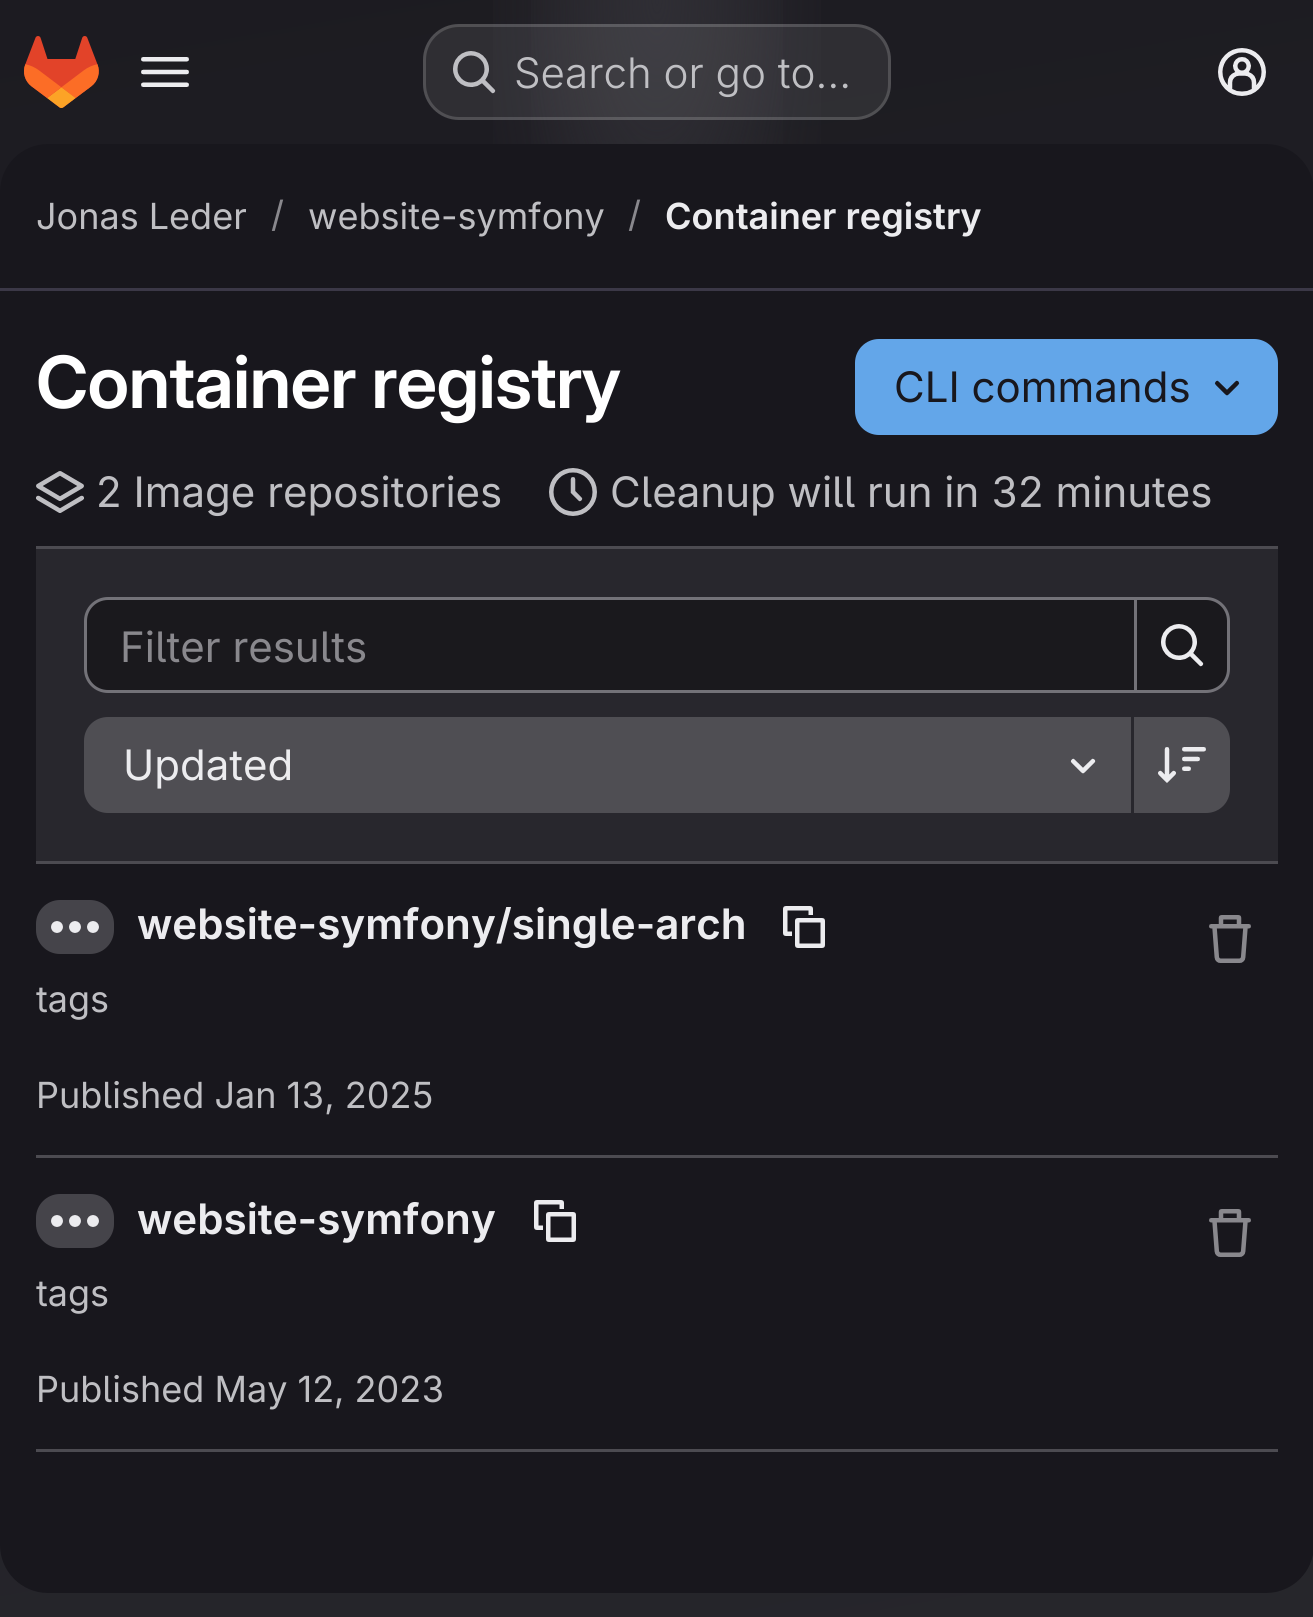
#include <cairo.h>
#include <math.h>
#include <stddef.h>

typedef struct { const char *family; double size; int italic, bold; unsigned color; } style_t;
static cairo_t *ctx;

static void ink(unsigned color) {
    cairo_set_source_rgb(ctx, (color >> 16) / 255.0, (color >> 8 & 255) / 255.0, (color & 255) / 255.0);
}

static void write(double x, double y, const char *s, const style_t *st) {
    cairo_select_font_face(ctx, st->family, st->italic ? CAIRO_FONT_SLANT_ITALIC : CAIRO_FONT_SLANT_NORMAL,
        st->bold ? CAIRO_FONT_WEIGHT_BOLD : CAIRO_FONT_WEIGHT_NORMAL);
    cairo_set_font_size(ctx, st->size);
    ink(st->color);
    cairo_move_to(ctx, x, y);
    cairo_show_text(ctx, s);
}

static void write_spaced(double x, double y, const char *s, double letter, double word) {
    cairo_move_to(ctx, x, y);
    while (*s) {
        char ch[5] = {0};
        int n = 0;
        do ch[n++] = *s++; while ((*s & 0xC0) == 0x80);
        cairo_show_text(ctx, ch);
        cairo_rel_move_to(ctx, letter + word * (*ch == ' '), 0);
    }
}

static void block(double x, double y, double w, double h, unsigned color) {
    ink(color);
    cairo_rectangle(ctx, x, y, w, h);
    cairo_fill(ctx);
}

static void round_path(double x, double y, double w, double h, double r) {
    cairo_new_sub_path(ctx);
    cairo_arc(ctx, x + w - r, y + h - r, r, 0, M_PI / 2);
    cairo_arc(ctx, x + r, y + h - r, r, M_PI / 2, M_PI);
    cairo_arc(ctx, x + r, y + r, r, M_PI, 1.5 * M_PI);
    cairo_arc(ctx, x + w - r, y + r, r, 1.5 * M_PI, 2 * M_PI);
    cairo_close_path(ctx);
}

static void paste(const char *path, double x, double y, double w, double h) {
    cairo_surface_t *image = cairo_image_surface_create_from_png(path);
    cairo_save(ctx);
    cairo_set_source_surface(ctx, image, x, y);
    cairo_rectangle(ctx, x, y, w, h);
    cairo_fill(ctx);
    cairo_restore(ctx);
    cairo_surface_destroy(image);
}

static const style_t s1 = {"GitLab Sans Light", 42, 0, 0, 0xbfbfc3};
static const style_t s2 = {"GitLab Sans", 36, 0, 0, 0xbfbfc3};
static const style_t s3 = {"GitLab Sans", 36, 0, 0, 0x89888d};
static const style_t s4 = {"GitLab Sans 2 SemiBold", 36, 0, 0, 0xececef};
static const style_t s5 = {"GitLab Sans", 42, 0, 0, 0x18171d};
static const style_t s6 = {"GitLab Sans", 42, 0, 0, 0xbfbfc3};
static const style_t s7 = {"GitLab Sans", 42, 0, 0, 0x89888d};
static const style_t s8 = {"GitLab Sans", 42, 0, 0, 0xececef};
static const style_t s9 = {"GitLab Sans 2 SemiBold", 42, 0, 0, 0xececef};

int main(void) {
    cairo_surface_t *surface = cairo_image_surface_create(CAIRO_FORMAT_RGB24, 1313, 1617);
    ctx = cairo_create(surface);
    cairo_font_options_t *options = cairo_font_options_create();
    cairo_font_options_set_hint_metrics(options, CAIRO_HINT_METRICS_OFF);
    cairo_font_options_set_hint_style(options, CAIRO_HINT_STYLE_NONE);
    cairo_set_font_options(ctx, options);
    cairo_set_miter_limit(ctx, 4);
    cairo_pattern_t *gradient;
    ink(0xffffff);
    cairo_paint(ctx);
    gradient = cairo_pattern_create_linear(815, 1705, 499, -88);
    cairo_pattern_add_color_stop_rgba(gradient, 0, 0.149, 0.149, 0.169, 1);
    cairo_pattern_add_color_stop_rgba(gradient, 1, 0.11, 0.106, 0.129, 1);
    cairo_set_source(ctx, gradient);
    cairo_pattern_destroy(gradient);
    cairo_rectangle(ctx, 0, 0, 1313, 1617);
    cairo_fill(ctx);
    gradient = cairo_pattern_create_radial(0, 0, 0, 0, 0, 1);
    cairo_pattern_set_matrix(gradient, &(cairo_matrix_t){1.0 / 657, 0, 0, 1.0 / 1617, -1.0 * 657 / 657, -1.0 * 0 / 1617});
    cairo_pattern_add_color_stop_rgba(gradient, 0, 0.188, 0.18, 0.204, 0.7);
    cairo_pattern_add_color_stop_rgba(gradient, 0.3, 0.188, 0.18, 0.204, 0);
    cairo_set_source(ctx, gradient);
    cairo_pattern_destroy(gradient);
    cairo_rectangle(ctx, 493, 0, 328, 144);
    cairo_fill(ctx);
    gradient = cairo_pattern_create_radial(0, 0, 0, 0, 0, 1);
    cairo_pattern_set_matrix(gradient, &(cairo_matrix_t){1.0 / 657, 0, 0, 1.0 / 1617, -1.0 * 657 / 657, -1.0 * 0 / 1617});
    cairo_pattern_add_color_stop_rgba(gradient, 0, 0.184, 0.18, 0.204, 1);
    cairo_pattern_add_color_stop_rgba(gradient, 0.23, 0.184, 0.18, 0.204, 0);
    cairo_set_source(ctx, gradient);
    cairo_pattern_destroy(gradient);
    cairo_rectangle(ctx, 531, 0, 252, 144);
    cairo_fill(ctx);
    paste("pic1.png", 24, 36, 75, 72);
    paste("pic2.png", 141, 57, 48, 30);
    cairo_set_source_rgba(ctx, 1, 1, 1, 0.08);
    round_path(423, 24, 468, 96, 36);
    cairo_fill(ctx);
    round_path(424.5, 25.5, 465, 93, 34.5);
    cairo_set_source_rgba(ctx, 1, 1, 1, 0.16);
    cairo_set_line_width(ctx, 3);
    cairo_stroke(ctx);
    paste("pic3.png", 453, 51, 43, 43);
    write(514, 88, "Search or go to…", &s1);
    paste("pic4.png", 1218, 48, 48, 48);
    ink(0x18171d);
    round_path(0, 144, 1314, 1449, 48);
    cairo_fill(ctx);
    block(0, 288, 1313, 3, 0x3b3847);
    write(36, 229, "Jonas Leder", &s2);
    write(271, 227, "/", &s3);
    write(308, 229, "website-symfony", &s2);
    write(628, 227, "/", &s3);
    write(665, 229, "Container registry", &s4);
    cairo_select_font_face(ctx, "GitLab Sans SemiBold", CAIRO_FONT_SLANT_NORMAL, CAIRO_FONT_WEIGHT_NORMAL);
    cairo_set_font_size(ctx, 72);
    ink(0xffffff);
    write_spaced(36, 408, "Container registry", -0.75, 0);
    ink(0x63a6e9);
    round_path(855, 339, 423, 96, 24);
    cairo_fill(ctx);
    write(894, 402, "CLI commands", &s5);
    paste("pic5.png", 1214, 380, 26, 16);
    paste("pic6.png", 36, 471, 48, 42);
    write(96, 507, "2 Image repositories", &s6);
    paste("pic7.png", 549, 468, 48, 48);
    write(610, 507, "Cleanup will run in 32 minutes", &s6);
    block(36, 549, 1242, 312, 0x28272d);
    block(36, 546, 1242, 3, 0x4c4b51);
    block(36, 861, 1242, 3, 0x4c4b51);
    ink(0x1a191d);
    cairo_new_path(ctx);
    cairo_move_to(ctx, 108, 598.5);
    cairo_line_to(ctx, 1135.5, 598.5);
    cairo_line_to(ctx, 1135.5, 691.5);
    cairo_line_to(ctx, 108, 691.5);
    cairo_curve_to(ctx, 95.5, 691.5, 85.5, 681.5, 85.5, 669);
    cairo_line_to(ctx, 85.5, 621);
    cairo_curve_to(ctx, 85.5, 608.5, 95.5, 598.5, 108, 598.5);
    cairo_close_path(ctx);
    cairo_fill_preserve(ctx);
    ink(0x737278);
    cairo_stroke(ctx);
    write(120, 662, "Filter results", &s7);
    cairo_set_source_rgba(ctx, 0.02, 0.02, 0.024, 0.4);
    cairo_new_path(ctx);
    cairo_move_to(ctx, 1135.5, 598.5);
    cairo_line_to(ctx, 1206, 598.5);
    cairo_curve_to(ctx, 1218.5, 598.5, 1228.5, 608.5, 1228.5, 621);
    cairo_line_to(ctx, 1228.5, 669);
    cairo_curve_to(ctx, 1228.5, 681.5, 1218.5, 691.5, 1206, 691.5);
    cairo_line_to(ctx, 1135.5, 691.5);
    cairo_close_path(ctx);
    cairo_fill_preserve(ctx);
    ink(0x737278);
    cairo_stroke(ctx);
    paste("pic8.png", 1161, 624, 43, 43);
    ink(0x4f4e53);
    cairo_new_path(ctx);
    cairo_move_to(ctx, 108, 717);
    cairo_line_to(ctx, 1131, 717);
    cairo_line_to(ctx, 1131, 813);
    cairo_line_to(ctx, 108, 813);
    cairo_curve_to(ctx, 94.5, 813, 84, 802.5, 84, 789);
    cairo_line_to(ctx, 84, 741);
    cairo_curve_to(ctx, 84, 727.5, 94.5, 717, 108, 717);
    cairo_close_path(ctx);
    cairo_fill(ctx);
    write(123, 780, "Updated", &s8);
    paste("pic9.png", 1070, 758, 26, 16);
    ink(0x4f4e53);
    cairo_new_path(ctx);
    cairo_move_to(ctx, 1134, 717);
    cairo_line_to(ctx, 1206, 717);
    cairo_curve_to(ctx, 1219.5, 717, 1230, 727.5, 1230, 741);
    cairo_line_to(ctx, 1230, 789);
    cairo_curve_to(ctx, 1230, 802.5, 1219.5, 813, 1206, 813);
    cairo_line_to(ctx, 1134, 813);
    cairo_close_path(ctx);
    cairo_fill(ctx);
    paste("pic10.png", 1158, 747, 48, 36);
    block(36, 1155, 1242, 3, 0x4c4b51);
    ink(0x45444a);
    round_path(36, 900, 78, 54, 24);
    cairo_fill(ctx);
    paste("pic11.png", 51, 921, 48, 12);
    write(137, 939, "website-symfony/single-arch", &s9);
    paste("pic12.png", 783, 906, 42, 42);
    write(36, 1012, "tags", &s2);
    write(36, 1108, "Published Jan 13, 2025", &s2);
    paste("pic13.png", 1209, 915, 42, 48);
    block(36, 1449, 1242, 3, 0x4c4b51);
    ink(0x45444a);
    round_path(36, 1194, 78, 54, 24);
    cairo_fill(ctx);
    paste("pic11.png", 51, 1215, 48, 12);
    write(137, 1234, "website-symfony", &s9);
    paste("pic12.png", 534, 1200, 42, 42);
    write(36, 1306, "tags", &s2);
    write(36, 1402, "Published May 12, 2023", &s2);
    paste("pic13.png", 1209, 1209, 42, 48);
    cairo_surface_write_to_png(surface, "screenshot.png");
    cairo_font_options_destroy(options);
    cairo_destroy(ctx);
    cairo_surface_destroy(surface);
    return 0;
}
